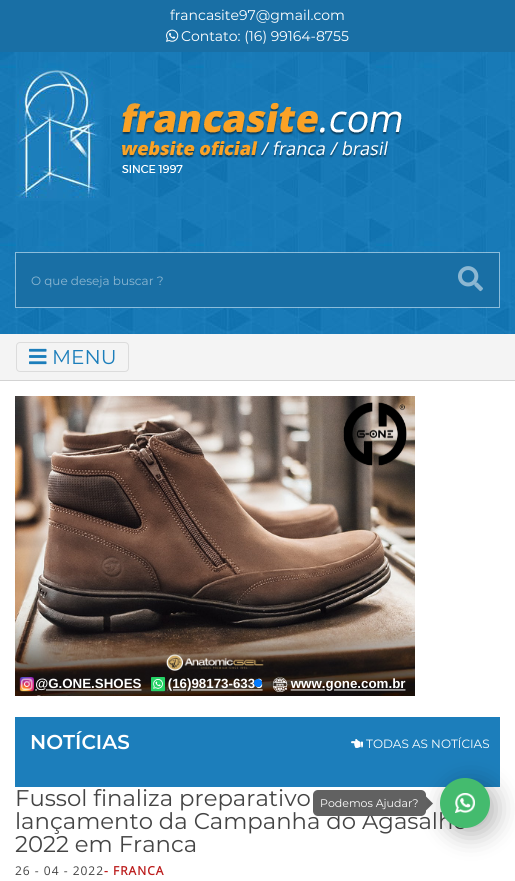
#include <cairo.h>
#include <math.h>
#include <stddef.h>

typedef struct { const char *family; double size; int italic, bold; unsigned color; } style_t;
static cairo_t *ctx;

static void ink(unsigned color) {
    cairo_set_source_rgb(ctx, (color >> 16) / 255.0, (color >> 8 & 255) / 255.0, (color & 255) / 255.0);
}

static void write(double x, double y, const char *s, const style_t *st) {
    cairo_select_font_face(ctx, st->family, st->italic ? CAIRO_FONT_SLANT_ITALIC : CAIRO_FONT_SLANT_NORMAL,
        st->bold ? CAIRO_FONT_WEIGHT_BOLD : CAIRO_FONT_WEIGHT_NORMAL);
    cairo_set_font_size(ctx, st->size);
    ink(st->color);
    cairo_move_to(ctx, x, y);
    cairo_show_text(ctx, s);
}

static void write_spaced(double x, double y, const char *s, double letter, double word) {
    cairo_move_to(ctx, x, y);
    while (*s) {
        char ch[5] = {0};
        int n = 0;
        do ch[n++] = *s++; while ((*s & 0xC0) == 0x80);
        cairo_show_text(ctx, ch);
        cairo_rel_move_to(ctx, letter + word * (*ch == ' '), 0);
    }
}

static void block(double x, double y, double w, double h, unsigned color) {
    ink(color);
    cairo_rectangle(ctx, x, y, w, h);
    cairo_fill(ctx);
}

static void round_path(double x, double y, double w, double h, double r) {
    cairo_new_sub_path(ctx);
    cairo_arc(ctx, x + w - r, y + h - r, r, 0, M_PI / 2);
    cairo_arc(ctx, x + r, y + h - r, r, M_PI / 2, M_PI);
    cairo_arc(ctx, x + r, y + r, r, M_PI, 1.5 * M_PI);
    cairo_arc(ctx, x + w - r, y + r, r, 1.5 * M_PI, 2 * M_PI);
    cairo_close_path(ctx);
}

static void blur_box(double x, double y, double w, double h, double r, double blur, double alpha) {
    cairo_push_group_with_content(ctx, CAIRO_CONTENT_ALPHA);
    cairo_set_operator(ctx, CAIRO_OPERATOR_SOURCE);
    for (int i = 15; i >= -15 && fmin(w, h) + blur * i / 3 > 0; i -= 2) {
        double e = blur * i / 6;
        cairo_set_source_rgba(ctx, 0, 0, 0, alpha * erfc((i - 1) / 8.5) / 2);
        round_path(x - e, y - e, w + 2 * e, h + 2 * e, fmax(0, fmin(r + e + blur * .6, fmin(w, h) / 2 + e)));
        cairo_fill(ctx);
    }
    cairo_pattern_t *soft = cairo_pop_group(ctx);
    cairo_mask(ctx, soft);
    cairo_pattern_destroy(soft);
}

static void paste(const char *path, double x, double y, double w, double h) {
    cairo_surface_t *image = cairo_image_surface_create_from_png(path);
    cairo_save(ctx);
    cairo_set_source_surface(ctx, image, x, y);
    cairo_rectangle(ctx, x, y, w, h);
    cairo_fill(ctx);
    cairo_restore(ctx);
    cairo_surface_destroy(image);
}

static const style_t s1 = {"Montserrat", 14, 0, 0, 0xffffff};
static const style_t s2 = {"Montserrat", 12, 0, 0, 0x8cb7d2};
static const style_t s3 = {"Montserrat", 20, 0, 0, 0x1c7ebb};
static const style_t s4 = {"Montserrat SemiBold", 20, 0, 0, 0xffffff};
static const style_t s5 = {"Montserrat", 12, 0, 0, 0xffffff};
static const style_t s6 = {"Montserrat", 22.75, 0, 0, 0x444444};
static const style_t s7 = {"Montserrat", 11, 0, 0, 0xffffff};

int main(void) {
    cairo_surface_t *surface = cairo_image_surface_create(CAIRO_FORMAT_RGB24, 515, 881);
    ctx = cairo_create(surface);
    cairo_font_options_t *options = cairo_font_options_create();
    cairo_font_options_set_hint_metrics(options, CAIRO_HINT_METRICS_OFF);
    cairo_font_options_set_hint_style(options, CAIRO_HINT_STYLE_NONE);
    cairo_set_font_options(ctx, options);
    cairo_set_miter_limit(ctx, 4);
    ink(0x196fa5);
    cairo_paint(ctx);
    write(170, 20, "francasite97@gmail.com", &s1);
    paste("pic1.png", 166, 29, 13, 13);
    write(181, 41, "Contato: (16) 99164-8755", &s1);
    paste("pic2.png", 0, 52, 515, 282);
    paste("pic3.png", 15, 68, 388, 133);
    block(16, 253, 483, 54, 0x196fa5);
    cairo_rectangle(ctx, 15.5, 252.5, 484, 55);
    cairo_set_source_rgba(ctx, 1, 1, 1, 0.5);
    cairo_set_line_width(ctx, 1);
    cairo_stroke(ctx);
    write(31, 285, "O que deseja buscar ?", &s2);
    paste("pic4.png", 458, 266, 25, 26);
    block(0, 334, 515, 46, 0xf4f4f4);
    block(0, 380, 515, 1, 0xd3d3d3);
    round_path(16.5, 342.5, 112, 29, 3.5);
    ink(0xdcdcdc);
    cairo_stroke(ctx);
    paste("pic5.png", 29, 348, 18, 17);
    write(52, 364, "MENU", &s3);
    block(0, 381, 515, 500, 0xffffff);
    paste("pic6.png", 15, 396, 400, 300);
    ink(0x007aff);
    cairo_arc(ctx, 258, 683, 4, 0, 2 * M_PI);
    cairo_fill(ctx);
    cairo_set_source_rgba(ctx, 0, 0, 0, 0.2);
    round_path(271, 680, 5, 6, 2.5);
    cairo_fill(ctx);
    cairo_rectangle(ctx, 288, 682, 3, 2);
    cairo_fill(ctx);
    block(15, 717, 485, 70, 0x1c7ebb);
    write(30, 749, "NOTÍCIAS", &s4);
    paste("pic7.png", 351, 739, 12, 9);
    write(366, 748, "TODAS AS NOTÍCIAS", &s5);
    write(15, 806, "Fussol finaliza preparativo", &s6);
    write(15, 829, "lançamento da Campanha do Agasalho", &s6);
    write(15, 852, "2022 em Franca", &s6);
    cairo_select_font_face(ctx, "Open Sans", CAIRO_FONT_SLANT_NORMAL, CAIRO_FONT_WEIGHT_NORMAL);
    cairo_set_font_size(ctx, 12);
    write_spaced(15, 875, "26 - 04 - 2022", 1, 0);
    cairo_select_font_face(ctx, "Open Sans", CAIRO_FONT_SLANT_NORMAL, CAIRO_FONT_WEIGHT_BOLD);
    ink(0xbb1c1c);
    write_spaced(104, 875, "- FRANCA", 1, 0);
    ink(0x616161);
    cairo_new_path(ctx);
    cairo_move_to(ctx, 422.5, 793);
    cairo_line_to(ctx, 433, 803.5);
    cairo_line_to(ctx, 422.5, 814);
    cairo_line_to(ctx, 412, 803.5);
    cairo_close_path(ctx);
    cairo_fill(ctx);
    ink(0x000000);
    blur_box(446, 784, 50, 50, 25, 12.5, 0.3);
    ink(0x44bb6e);
    cairo_arc(ctx, 465, 803, 25, 0, 2 * M_PI);
    cairo_fill(ctx);
    paste("pic8.png", 455, 793, 20, 20);
    ink(0x616161);
    round_path(313, 790, 113, 26, 5);
    cairo_fill(ctx);
    write(320, 807, "Podemos Ajudar?", &s7);
    cairo_surface_write_to_png(surface, "screenshot.png");
    cairo_font_options_destroy(options);
    cairo_destroy(ctx);
    cairo_surface_destroy(surface);
    return 0;
}
